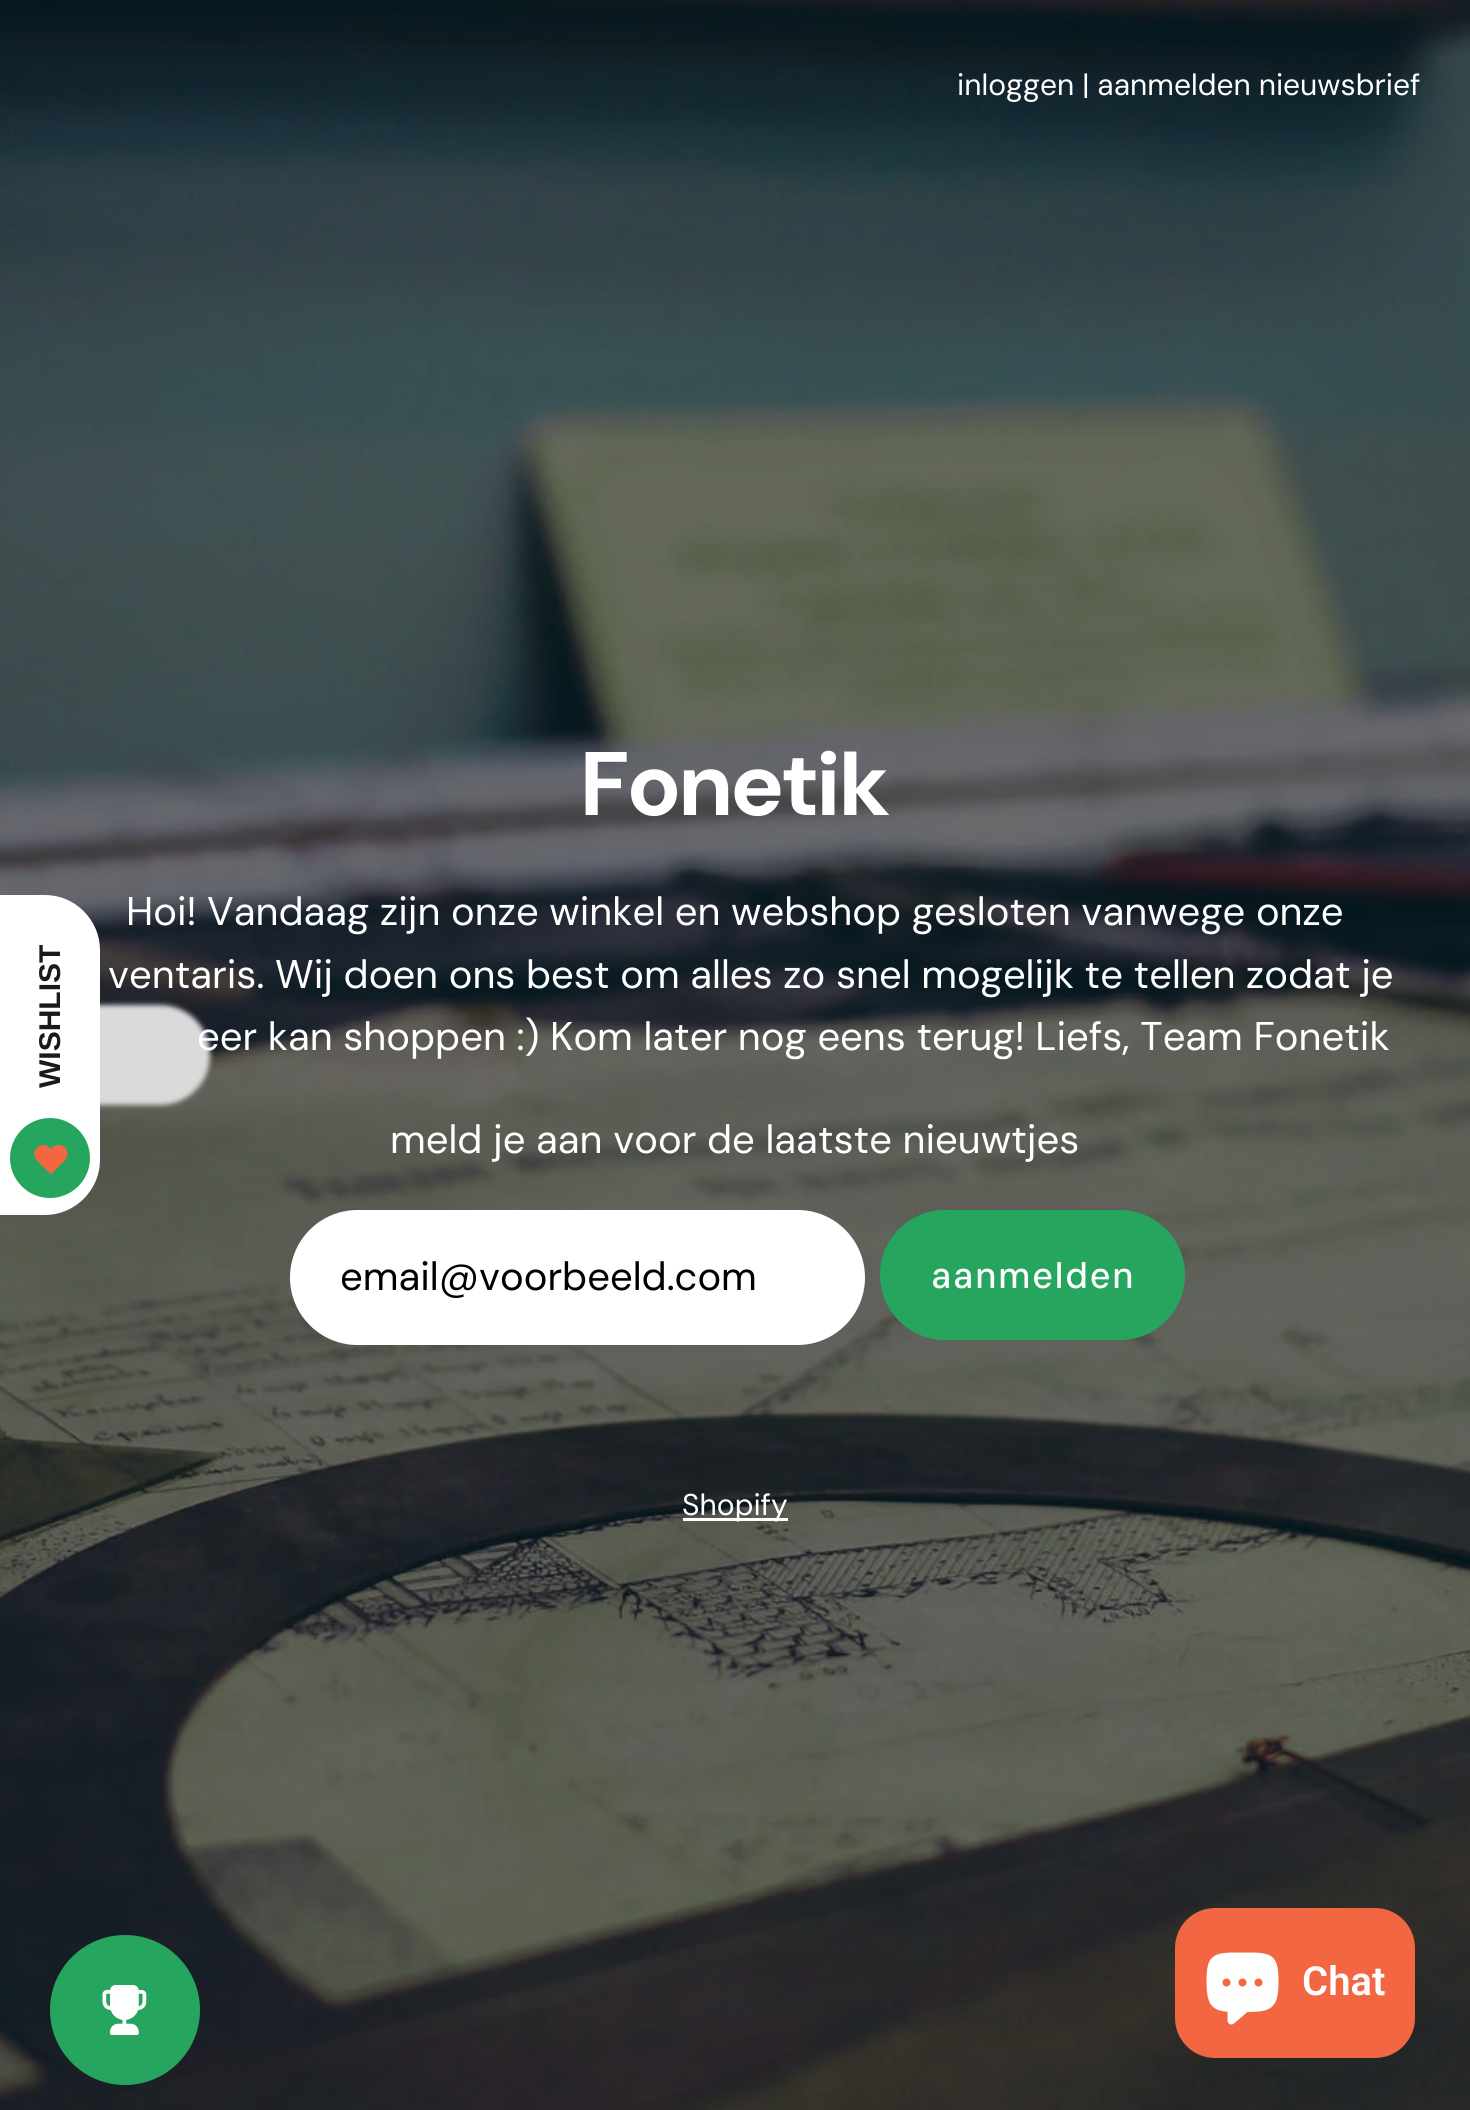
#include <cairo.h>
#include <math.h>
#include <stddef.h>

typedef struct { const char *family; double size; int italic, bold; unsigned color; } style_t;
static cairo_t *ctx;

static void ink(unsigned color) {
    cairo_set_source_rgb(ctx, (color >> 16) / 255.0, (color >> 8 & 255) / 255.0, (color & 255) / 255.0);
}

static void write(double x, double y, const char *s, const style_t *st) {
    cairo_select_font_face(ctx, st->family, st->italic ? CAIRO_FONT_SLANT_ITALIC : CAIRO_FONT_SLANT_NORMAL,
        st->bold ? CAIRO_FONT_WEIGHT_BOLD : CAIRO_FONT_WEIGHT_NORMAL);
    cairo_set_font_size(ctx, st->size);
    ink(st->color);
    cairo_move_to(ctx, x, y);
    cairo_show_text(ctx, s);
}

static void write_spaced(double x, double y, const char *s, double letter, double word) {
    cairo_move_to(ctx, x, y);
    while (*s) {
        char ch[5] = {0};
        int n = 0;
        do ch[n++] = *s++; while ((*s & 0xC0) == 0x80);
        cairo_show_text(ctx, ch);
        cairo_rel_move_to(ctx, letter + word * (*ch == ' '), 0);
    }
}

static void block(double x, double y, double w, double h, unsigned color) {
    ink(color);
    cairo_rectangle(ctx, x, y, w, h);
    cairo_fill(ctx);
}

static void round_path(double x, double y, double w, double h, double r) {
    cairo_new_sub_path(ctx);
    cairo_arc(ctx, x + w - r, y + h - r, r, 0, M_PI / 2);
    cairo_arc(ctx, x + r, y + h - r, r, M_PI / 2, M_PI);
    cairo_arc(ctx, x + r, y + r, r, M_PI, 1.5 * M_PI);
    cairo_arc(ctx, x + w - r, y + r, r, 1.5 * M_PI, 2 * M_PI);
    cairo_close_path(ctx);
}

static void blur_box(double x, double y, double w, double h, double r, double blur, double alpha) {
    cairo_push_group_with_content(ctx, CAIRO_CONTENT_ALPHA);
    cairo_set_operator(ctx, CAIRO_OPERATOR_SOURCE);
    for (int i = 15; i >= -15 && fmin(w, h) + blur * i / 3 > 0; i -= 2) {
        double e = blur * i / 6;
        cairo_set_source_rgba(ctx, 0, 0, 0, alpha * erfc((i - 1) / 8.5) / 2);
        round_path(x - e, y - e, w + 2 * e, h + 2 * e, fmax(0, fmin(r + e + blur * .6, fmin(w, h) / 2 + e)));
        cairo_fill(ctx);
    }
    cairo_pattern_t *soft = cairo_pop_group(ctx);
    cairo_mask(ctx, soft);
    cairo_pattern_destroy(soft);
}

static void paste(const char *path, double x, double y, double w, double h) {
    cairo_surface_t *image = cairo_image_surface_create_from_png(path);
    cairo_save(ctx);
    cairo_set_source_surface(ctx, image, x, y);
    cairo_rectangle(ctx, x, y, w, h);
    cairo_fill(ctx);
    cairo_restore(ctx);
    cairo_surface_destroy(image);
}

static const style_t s1 = {"Liberation Sans", 30, 0, 1, 0x1a1a1a};
static const style_t s2 = {"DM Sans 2", 30, 0, 0, 0xffffff};
static const style_t s3 = {"DM Sans", 90, 0, 1, 0xffffff};
static const style_t s4 = {"DM Sans", 40, 0, 0, 0xffffff};
static const style_t s5 = {"DM Sans", 40, 0, 0, 0x000000};
static const style_t s6 = {"Roboto SemiBold", 40, 0, 0, 0xffffff};

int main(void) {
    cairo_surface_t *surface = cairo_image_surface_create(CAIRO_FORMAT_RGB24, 1470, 2110);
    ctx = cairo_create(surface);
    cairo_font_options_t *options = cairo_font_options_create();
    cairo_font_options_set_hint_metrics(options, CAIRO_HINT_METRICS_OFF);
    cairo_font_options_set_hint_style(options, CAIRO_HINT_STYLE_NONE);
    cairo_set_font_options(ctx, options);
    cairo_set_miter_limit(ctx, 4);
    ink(0xffffff);
    cairo_paint(ctx);
    paste("pic3.png", 0, 0, 1470, 2110);
    ink(0xdadada);
    blur_box(-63, 1005, 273, 100, 55, 2.5, 1);
    ink(0xffffff);
    cairo_new_path(ctx);
    cairo_move_to(ctx, 0, 1215);
    cairo_line_to(ctx, 0, 895);
    cairo_line_to(ctx, 45, 895);
    cairo_curve_to(ctx, 75, 895, 100, 920, 100, 950);
    cairo_line_to(ctx, 100, 1160);
    cairo_curve_to(ctx, 100, 1190, 75, 1215, 45, 1215);
    cairo_close_path(ctx);
    cairo_fill(ctx);
    cairo_save(ctx);
    cairo_translate(ctx, 60, 1088);
    cairo_rotate(ctx, -90 * M_PI / 180);
    write(0, 0, "WISHLIST", &s1);
    cairo_restore(ctx);
    ink(0x25a55e);
    cairo_new_path(ctx);
    cairo_arc(ctx, 50, 1158, 40, 0, 2 * M_PI);
    cairo_fill(ctx);
    paste("pic1.png", 34, 1145, 34, 29);
    cairo_arc(ctx, 125, 2010, 75, 0, 2 * M_PI);
    cairo_fill(ctx);
    paste("pic2.png", 102, 1985, 45, 50);
    write(957, 95, "inloggen | aanmelden nieuwsbrief", &s2);
    write(581, 815, "Fonetik", &s3);
    write(126, 925, "Hoi! Vandaag zijn onze winkel en webshop gesloten vanwege onze", &s4);
    write(108, 988, "ventaris. Wij doen ons best om alles zo snel mogelijk te tellen zodat je", &s4);
    write(197, 1050, "eer kan shoppen :) Kom later nog eens terug! Liefs, Team Fonetik", &s4);
    write(390, 1153, "meld je aan voor de laatste nieuwtjes", &s4);
    round_path(290, 1210, 575, 135, 67.5);
    cairo_fill(ctx);
    write(340, 1290, "email@voorbeeld.com", &s5);
    ink(0x25a55e);
    round_path(880, 1210, 305, 130, 65);
    cairo_fill(ctx);
    cairo_select_font_face(ctx, "DM Sans Medium", CAIRO_FONT_SLANT_NORMAL, CAIRO_FONT_WEIGHT_NORMAL);
    cairo_set_font_size(ctx, 36);
    ink(0xffffff);
    write_spaced(931, 1288, "aanmelden", 1.75, 0);
    block(683, 1518, 105, 3, 0xffffff);
    write(682, 1515, "Shopify", &s2);
    ink(0xf26641);
    round_path(1175, 1908, 240, 150, 40);
    cairo_fill(ctx);
    paste("pic4.png", 1206, 1952, 73, 73);
    write(1302, 1995, "Chat", &s6);
    cairo_surface_write_to_png(surface, "screenshot.png");
    cairo_font_options_destroy(options);
    cairo_destroy(ctx);
    cairo_surface_destroy(surface);
    return 0;
}
